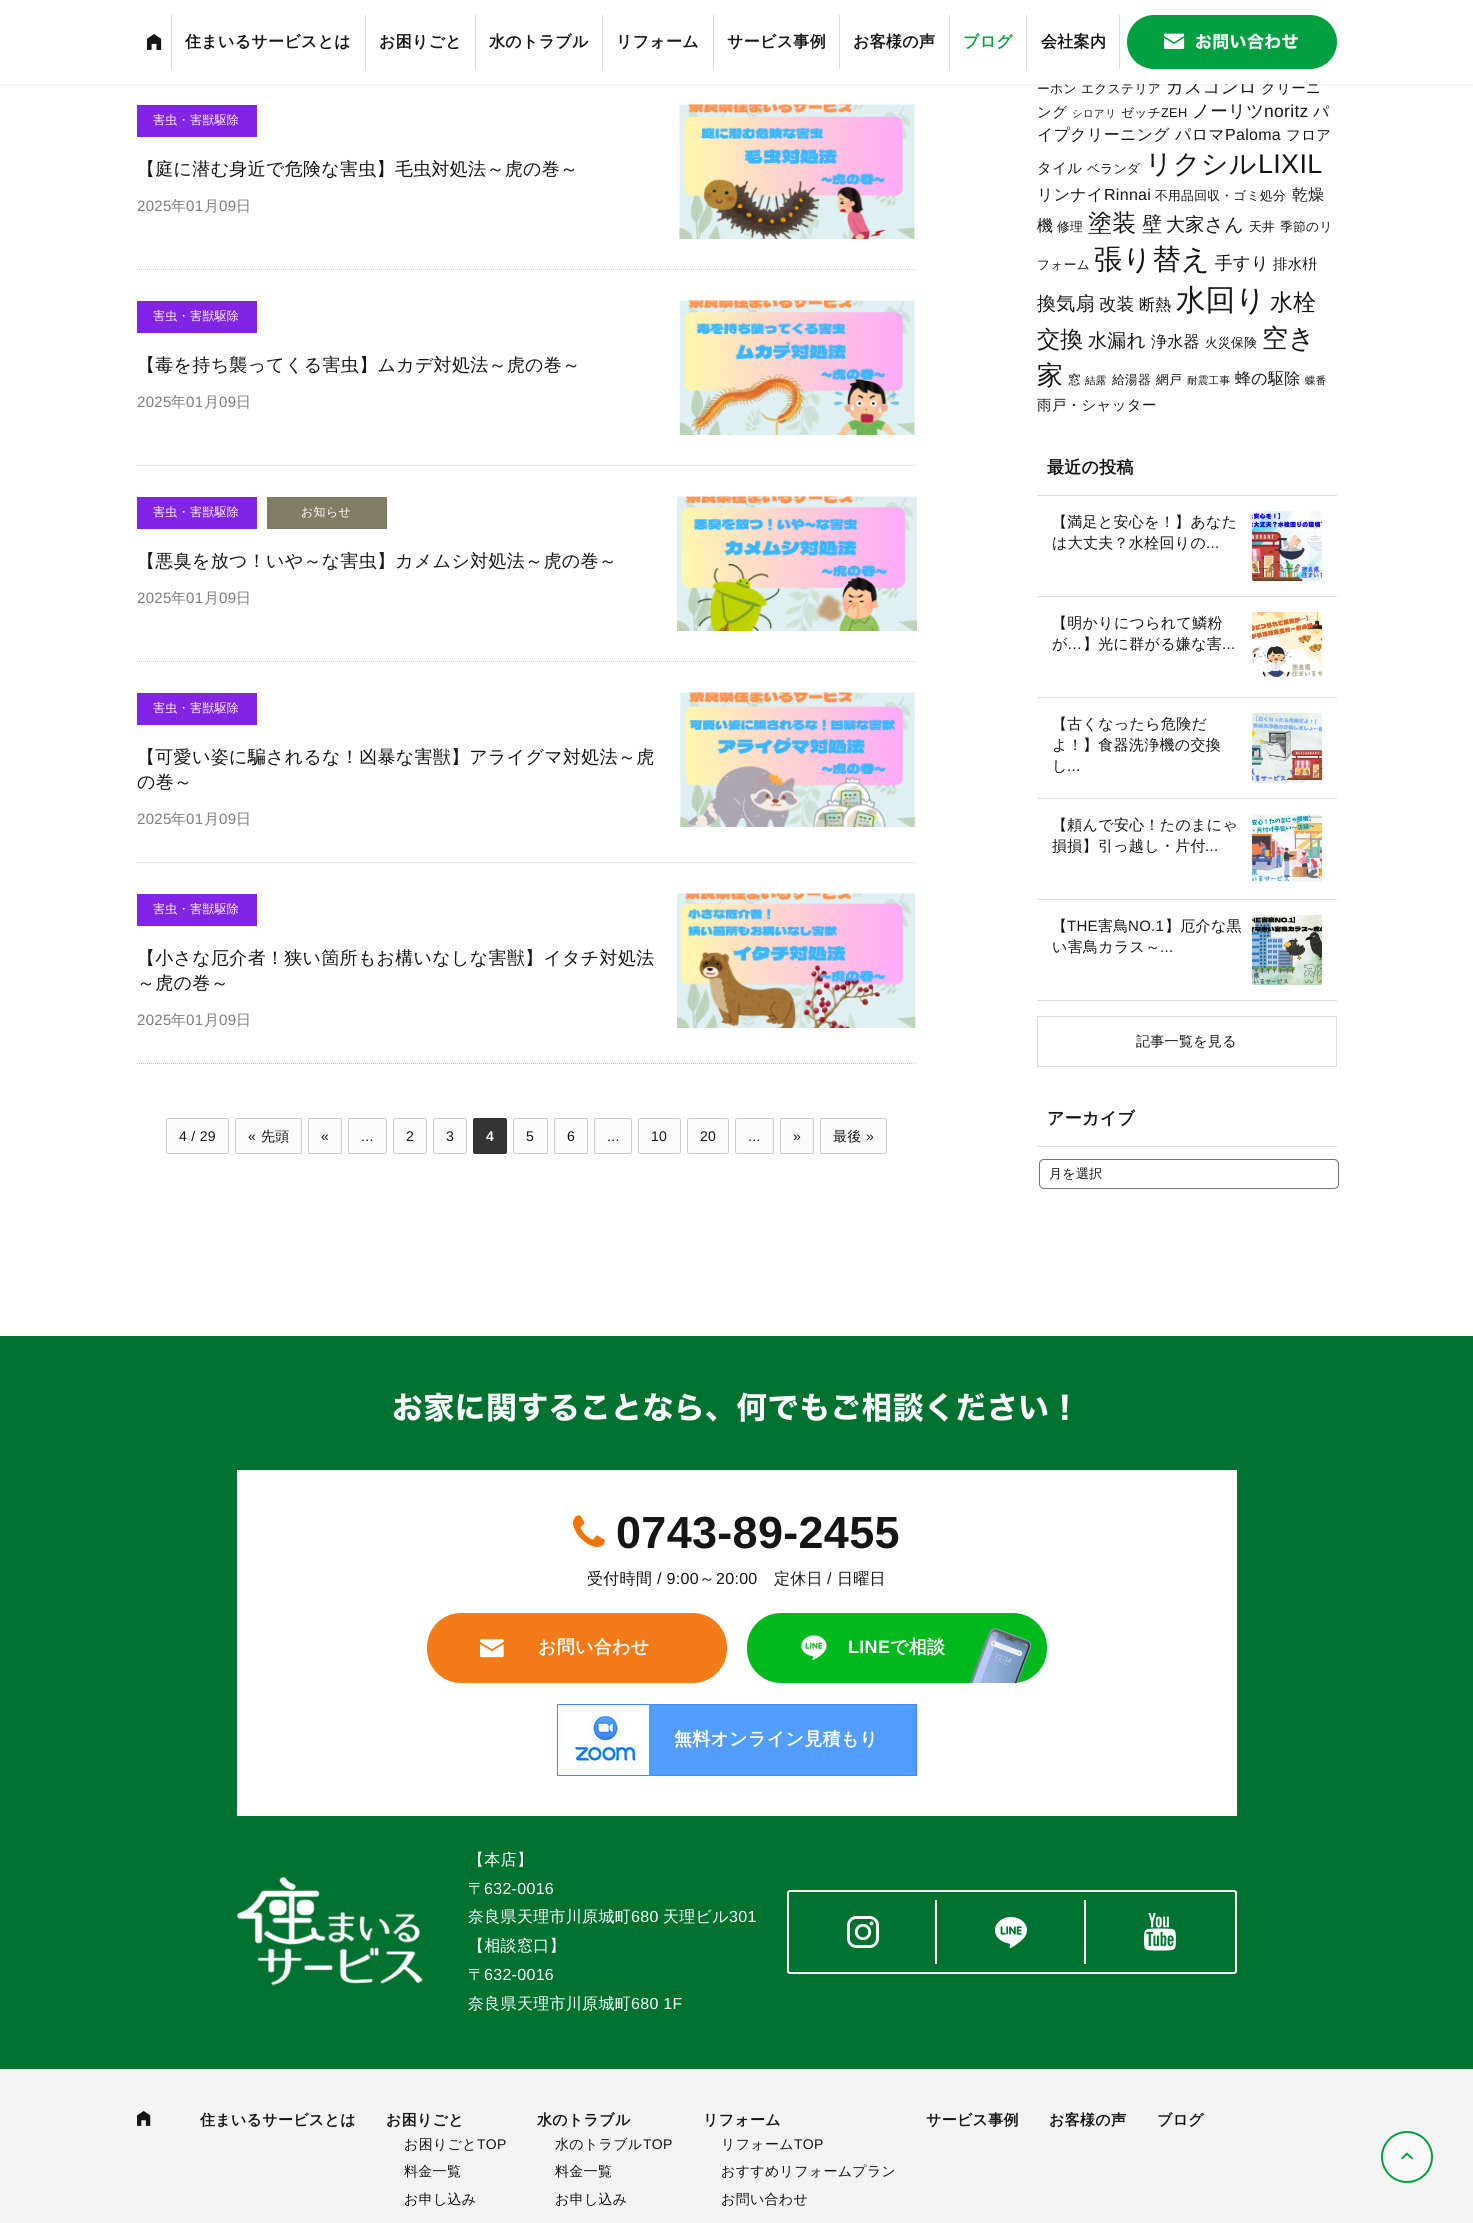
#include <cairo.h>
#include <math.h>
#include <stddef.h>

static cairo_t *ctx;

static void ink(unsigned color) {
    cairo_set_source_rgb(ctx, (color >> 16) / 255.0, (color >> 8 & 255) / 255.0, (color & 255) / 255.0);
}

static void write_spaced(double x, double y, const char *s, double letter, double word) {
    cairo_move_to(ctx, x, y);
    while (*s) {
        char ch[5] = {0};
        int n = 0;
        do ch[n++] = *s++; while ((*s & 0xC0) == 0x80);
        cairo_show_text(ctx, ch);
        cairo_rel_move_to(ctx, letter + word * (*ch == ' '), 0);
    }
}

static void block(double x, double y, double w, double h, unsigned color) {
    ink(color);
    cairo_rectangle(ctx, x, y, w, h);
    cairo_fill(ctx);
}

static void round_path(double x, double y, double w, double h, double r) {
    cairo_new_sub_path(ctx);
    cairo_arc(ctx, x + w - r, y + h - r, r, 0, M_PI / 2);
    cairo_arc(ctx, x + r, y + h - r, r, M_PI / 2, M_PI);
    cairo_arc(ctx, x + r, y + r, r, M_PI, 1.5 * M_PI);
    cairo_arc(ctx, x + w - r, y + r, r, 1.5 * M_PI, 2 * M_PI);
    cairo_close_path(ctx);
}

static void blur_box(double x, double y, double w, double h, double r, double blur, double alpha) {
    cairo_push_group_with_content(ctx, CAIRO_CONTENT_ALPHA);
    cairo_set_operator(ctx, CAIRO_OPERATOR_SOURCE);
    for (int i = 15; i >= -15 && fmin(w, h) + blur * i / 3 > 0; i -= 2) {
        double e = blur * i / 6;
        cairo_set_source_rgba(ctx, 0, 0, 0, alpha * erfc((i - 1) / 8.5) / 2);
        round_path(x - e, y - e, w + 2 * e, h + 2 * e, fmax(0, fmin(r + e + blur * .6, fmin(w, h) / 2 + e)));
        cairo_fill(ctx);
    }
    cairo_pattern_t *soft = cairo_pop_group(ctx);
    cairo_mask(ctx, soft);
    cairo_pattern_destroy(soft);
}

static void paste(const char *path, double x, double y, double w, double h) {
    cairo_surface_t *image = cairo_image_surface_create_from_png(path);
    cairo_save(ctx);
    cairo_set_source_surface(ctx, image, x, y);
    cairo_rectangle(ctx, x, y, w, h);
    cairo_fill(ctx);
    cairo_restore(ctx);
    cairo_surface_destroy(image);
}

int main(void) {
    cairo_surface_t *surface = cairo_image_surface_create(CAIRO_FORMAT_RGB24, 1473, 2223);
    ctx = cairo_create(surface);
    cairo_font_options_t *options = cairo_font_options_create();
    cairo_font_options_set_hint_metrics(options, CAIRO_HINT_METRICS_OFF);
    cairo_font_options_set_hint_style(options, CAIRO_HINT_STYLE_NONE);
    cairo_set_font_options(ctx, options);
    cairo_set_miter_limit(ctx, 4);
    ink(0xffffff);
    cairo_paint(ctx);
    ink(0x000000);
    blur_box(0, -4, 1473, 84, 0, 4, 0.3);
    cairo_select_font_face(ctx, "WenQuanYi Zen Hei Medium", CAIRO_FONT_SLANT_NORMAL, CAIRO_FONT_WEIGHT_NORMAL);
    cairo_set_font_size(ctx, 12.75);
    ink(0x151515);
    write_spaced(1081, 93, "エクステリア", 0.3, 0);
    cairo_set_font_size(ctx, 17.5);
    write_spaced(1166, 93, "ガスコンロ", 0.3, 0);
    cairo_set_font_size(ctx, 14.5);
    write_spaced(1261, 93, "クリーニ", 0.3, 0);
    block(0, 0, 1473, 84, 0xffffff);
    block(171, 15, 1, 54, 0xd9d9d9);
    paste("pic1.png", 147, 34, 15, 16);
    block(365, 15, 1, 54, 0xd9d9d9);
    cairo_select_font_face(ctx, "WenQuanYi Zen Hei", CAIRO_FONT_SLANT_NORMAL, CAIRO_FONT_WEIGHT_BOLD);
    cairo_set_font_size(ctx, 16);
    ink(0x151515);
    write_spaced(185, 47, "住まいるサービスとは", 0.3, 0);
    block(475, 15, 1, 54, 0xd9d9d9);
    ink(0x151515);
    write_spaced(379, 47, "お困りごと", 0.3, 0);
    block(602, 15, 1, 54, 0xd9d9d9);
    ink(0x151515);
    write_spaced(489, 47, "水のトラブル", 0.3, 0);
    block(713, 15, 1, 54, 0xd9d9d9);
    ink(0x151515);
    write_spaced(616, 47, "リフォーム", 0.3, 0);
    block(839, 15, 1, 54, 0xd9d9d9);
    ink(0x151515);
    write_spaced(727, 47, "サービス事例", 0.3, 0);
    block(949, 15, 1, 54, 0xd9d9d9);
    ink(0x151515);
    write_spaced(853, 47, "お客様の声", 0.3, 0);
    block(1026, 15, 1, 54, 0xd9d9d9);
    ink(0x009f41);
    write_spaced(963, 47, "ブログ", 0.3, 0);
    block(1119, 15, 1, 54, 0xd9d9d9);
    ink(0x151515);
    write_spaced(1041, 47, "会社案内", 0.3, 0);
    ink(0x009f41);
    round_path(1128, 16, 208, 52, 26);
    cairo_fill_preserve(ctx);
    cairo_stroke(ctx);
    paste("pic2.png", 1164, 33, 21, 16);
    cairo_select_font_face(ctx, "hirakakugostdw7", CAIRO_FONT_SLANT_NORMAL, CAIRO_FONT_WEIGHT_BOLD);
    cairo_set_font_size(ctx, 17);
    ink(0xffffff);
    write_spaced(1195, 48, "お問い合わせ", 0.3, 0);
    cairo_new_path(ctx);
    cairo_move_to(ctx, 137, 269.5);
    cairo_line_to(ctx, 917, 269.5);
    ink(0xcccccc);
    cairo_set_line_width(ctx, 1);
    cairo_set_dash(ctx, (double[]){1, 1}, 2, 0);
    cairo_stroke(ctx);
    block(137, 105, 120, 32, 0x8224e3);
    cairo_select_font_face(ctx, "WenQuanYi Zen Hei Medium", CAIRO_FONT_SLANT_NORMAL, CAIRO_FONT_WEIGHT_NORMAL);
    cairo_set_font_size(ctx, 12);
    ink(0xffffff);
    write_spaced(153, 124, "害虫・害獣駆除", 0.3, 0);
    cairo_set_font_size(ctx, 18);
    ink(0x151515);
    write_spaced(137, 175, "【庭に潜む身近で危険な害虫】毛虫対処法～虎の巻～", 0.3, 0);
    cairo_select_font_face(ctx, "Liberation Sans", CAIRO_FONT_SLANT_NORMAL, CAIRO_FONT_WEIGHT_NORMAL);
    cairo_set_font_size(ctx, 15);
    ink(0x7d7d7d);
    write_spaced(137, 211, "2025", 0.3, 0);
    cairo_select_font_face(ctx, "WenQuanYi Zen Hei Medium", CAIRO_FONT_SLANT_NORMAL, CAIRO_FONT_WEIGHT_NORMAL);
    write_spaced(171, 211, "年", 0.3, 0);
    cairo_select_font_face(ctx, "Liberation Sans", CAIRO_FONT_SLANT_NORMAL, CAIRO_FONT_WEIGHT_NORMAL);
    write_spaced(186, 211, "01", 0.3, 0);
    cairo_select_font_face(ctx, "WenQuanYi Zen Hei Medium", CAIRO_FONT_SLANT_NORMAL, CAIRO_FONT_WEIGHT_NORMAL);
    write_spaced(204, 211, "月", 0.3, 0);
    cairo_select_font_face(ctx, "Liberation Sans", CAIRO_FONT_SLANT_NORMAL, CAIRO_FONT_WEIGHT_NORMAL);
    write_spaced(219, 211, "09", 0.3, 0);
    cairo_select_font_face(ctx, "WenQuanYi Zen Hei Medium", CAIRO_FONT_SLANT_NORMAL, CAIRO_FONT_WEIGHT_NORMAL);
    write_spaced(236, 211, "日", 0.3, 0);
    paste("pic3.png", 679, 104, 236, 135);
    cairo_new_path(ctx);
    cairo_move_to(ctx, 137, 465.5);
    cairo_line_to(ctx, 917, 465.5);
    ink(0xcccccc);
    cairo_stroke(ctx);
    block(137, 301, 120, 32, 0x8224e3);
    cairo_set_font_size(ctx, 12);
    ink(0xffffff);
    write_spaced(153, 320, "害虫・害獣駆除", 0.3, 0);
    cairo_set_font_size(ctx, 18);
    ink(0x151515);
    write_spaced(137, 371, "【毒を持ち襲ってくる害虫】ムカデ対処法～虎の巻～", 0.3, 0);
    cairo_select_font_face(ctx, "Liberation Sans", CAIRO_FONT_SLANT_NORMAL, CAIRO_FONT_WEIGHT_NORMAL);
    cairo_set_font_size(ctx, 15);
    ink(0x7d7d7d);
    write_spaced(137, 407, "2025", 0.3, 0);
    cairo_select_font_face(ctx, "WenQuanYi Zen Hei Medium", CAIRO_FONT_SLANT_NORMAL, CAIRO_FONT_WEIGHT_NORMAL);
    write_spaced(171, 407, "年", 0.3, 0);
    cairo_select_font_face(ctx, "Liberation Sans", CAIRO_FONT_SLANT_NORMAL, CAIRO_FONT_WEIGHT_NORMAL);
    write_spaced(186, 407, "01", 0.3, 0);
    cairo_select_font_face(ctx, "WenQuanYi Zen Hei Medium", CAIRO_FONT_SLANT_NORMAL, CAIRO_FONT_WEIGHT_NORMAL);
    write_spaced(204, 407, "月", 0.3, 0);
    cairo_select_font_face(ctx, "Liberation Sans", CAIRO_FONT_SLANT_NORMAL, CAIRO_FONT_WEIGHT_NORMAL);
    write_spaced(219, 407, "09", 0.3, 0);
    cairo_select_font_face(ctx, "WenQuanYi Zen Hei Medium", CAIRO_FONT_SLANT_NORMAL, CAIRO_FONT_WEIGHT_NORMAL);
    write_spaced(236, 407, "日", 0.3, 0);
    paste("pic4.png", 679, 300, 236, 135);
    cairo_new_path(ctx);
    cairo_move_to(ctx, 137, 661.5);
    cairo_line_to(ctx, 917, 661.5);
    ink(0xcccccc);
    cairo_stroke(ctx);
    block(137, 497, 120, 32, 0x8224e3);
    cairo_set_font_size(ctx, 12);
    ink(0xffffff);
    write_spaced(153, 516, "害虫・害獣駆除", 0.3, 0);
    block(267, 497, 120, 32, 0x817c64);
    ink(0xffffff);
    write_spaced(301, 516, "お知らせ", 0.3, 0);
    cairo_set_font_size(ctx, 18);
    ink(0x151515);
    write_spaced(137, 567, "【悪臭を放つ！いや～な害虫】カメムシ対処法～虎の巻～", 0.3, 0);
    cairo_select_font_face(ctx, "Liberation Sans", CAIRO_FONT_SLANT_NORMAL, CAIRO_FONT_WEIGHT_NORMAL);
    cairo_set_font_size(ctx, 15);
    ink(0x7d7d7d);
    write_spaced(137, 603, "2025", 0.3, 0);
    cairo_select_font_face(ctx, "WenQuanYi Zen Hei Medium", CAIRO_FONT_SLANT_NORMAL, CAIRO_FONT_WEIGHT_NORMAL);
    write_spaced(171, 603, "年", 0.3, 0);
    cairo_select_font_face(ctx, "Liberation Sans", CAIRO_FONT_SLANT_NORMAL, CAIRO_FONT_WEIGHT_NORMAL);
    write_spaced(186, 603, "01", 0.3, 0);
    cairo_select_font_face(ctx, "WenQuanYi Zen Hei Medium", CAIRO_FONT_SLANT_NORMAL, CAIRO_FONT_WEIGHT_NORMAL);
    write_spaced(204, 603, "月", 0.3, 0);
    cairo_select_font_face(ctx, "Liberation Sans", CAIRO_FONT_SLANT_NORMAL, CAIRO_FONT_WEIGHT_NORMAL);
    write_spaced(219, 603, "09", 0.3, 0);
    cairo_select_font_face(ctx, "WenQuanYi Zen Hei Medium", CAIRO_FONT_SLANT_NORMAL, CAIRO_FONT_WEIGHT_NORMAL);
    write_spaced(236, 603, "日", 0.3, 0);
    paste("pic5.png", 677, 496, 240, 135);
    cairo_new_path(ctx);
    cairo_move_to(ctx, 137, 862.5);
    cairo_line_to(ctx, 917, 862.5);
    ink(0xcccccc);
    cairo_stroke(ctx);
    block(137, 693, 120, 32, 0x8224e3);
    cairo_set_font_size(ctx, 12);
    ink(0xffffff);
    write_spaced(153, 712, "害虫・害獣駆除", 0.3, 0);
    cairo_set_font_size(ctx, 18);
    ink(0x151515);
    write_spaced(137, 763, "【可愛い姿に騙されるな！凶暴な害獣】アライグマ対処法～虎", 0.3, 0);
    write_spaced(137, 788, "の巻～", 0.3, 0);
    cairo_select_font_face(ctx, "Liberation Sans", CAIRO_FONT_SLANT_NORMAL, CAIRO_FONT_WEIGHT_NORMAL);
    cairo_set_font_size(ctx, 15);
    ink(0x7d7d7d);
    write_spaced(137, 824, "2025", 0.3, 0);
    cairo_select_font_face(ctx, "WenQuanYi Zen Hei Medium", CAIRO_FONT_SLANT_NORMAL, CAIRO_FONT_WEIGHT_NORMAL);
    write_spaced(171, 824, "年", 0.3, 0);
    cairo_select_font_face(ctx, "Liberation Sans", CAIRO_FONT_SLANT_NORMAL, CAIRO_FONT_WEIGHT_NORMAL);
    write_spaced(186, 824, "01", 0.3, 0);
    cairo_select_font_face(ctx, "WenQuanYi Zen Hei Medium", CAIRO_FONT_SLANT_NORMAL, CAIRO_FONT_WEIGHT_NORMAL);
    write_spaced(204, 824, "月", 0.3, 0);
    cairo_select_font_face(ctx, "Liberation Sans", CAIRO_FONT_SLANT_NORMAL, CAIRO_FONT_WEIGHT_NORMAL);
    write_spaced(219, 824, "09", 0.3, 0);
    cairo_select_font_face(ctx, "WenQuanYi Zen Hei Medium", CAIRO_FONT_SLANT_NORMAL, CAIRO_FONT_WEIGHT_NORMAL);
    write_spaced(236, 824, "日", 0.3, 0);
    paste("pic6.png", 680, 692, 236, 135);
    cairo_new_path(ctx);
    cairo_move_to(ctx, 137, 1063.5);
    cairo_line_to(ctx, 917, 1063.5);
    ink(0xcccccc);
    cairo_stroke(ctx);
    block(137, 894, 120, 32, 0x8224e3);
    cairo_set_font_size(ctx, 12);
    ink(0xffffff);
    write_spaced(153, 913, "害虫・害獣駆除", 0.3, 0);
    cairo_set_font_size(ctx, 18);
    ink(0x151515);
    write_spaced(137, 964, "【小さな厄介者！狭い箇所もお構いなしな害獣】イタチ対処法", 0.3, 0);
    write_spaced(137, 989, "～虎の巻～", 0.3, 0);
    cairo_select_font_face(ctx, "Liberation Sans", CAIRO_FONT_SLANT_NORMAL, CAIRO_FONT_WEIGHT_NORMAL);
    cairo_set_font_size(ctx, 15);
    ink(0x7d7d7d);
    write_spaced(137, 1025, "2025", 0.3, 0);
    cairo_select_font_face(ctx, "WenQuanYi Zen Hei Medium", CAIRO_FONT_SLANT_NORMAL, CAIRO_FONT_WEIGHT_NORMAL);
    write_spaced(171, 1025, "年", 0.3, 0);
    cairo_select_font_face(ctx, "Liberation Sans", CAIRO_FONT_SLANT_NORMAL, CAIRO_FONT_WEIGHT_NORMAL);
    write_spaced(186, 1025, "01", 0.3, 0);
    cairo_select_font_face(ctx, "WenQuanYi Zen Hei Medium", CAIRO_FONT_SLANT_NORMAL, CAIRO_FONT_WEIGHT_NORMAL);
    write_spaced(204, 1025, "月", 0.3, 0);
    cairo_select_font_face(ctx, "Liberation Sans", CAIRO_FONT_SLANT_NORMAL, CAIRO_FONT_WEIGHT_NORMAL);
    write_spaced(219, 1025, "09", 0.3, 0);
    cairo_select_font_face(ctx, "WenQuanYi Zen Hei Medium", CAIRO_FONT_SLANT_NORMAL, CAIRO_FONT_WEIGHT_NORMAL);
    write_spaced(236, 1025, "日", 0.3, 0);
    paste("pic7.png", 677, 893, 239, 135);
    ink(0xfafafa);
    round_path(166.5, 1118.5, 62, 35, 1.5);
    cairo_fill_preserve(ctx);
    ink(0xcccccc);
    cairo_set_dash(ctx, NULL, 0, 0);
    cairo_stroke(ctx);
    cairo_select_font_face(ctx, "Liberation Sans", CAIRO_FONT_SLANT_NORMAL, CAIRO_FONT_WEIGHT_NORMAL);
    cairo_set_font_size(ctx, 14);
    ink(0x151515);
    write_spaced(179, 1141, "4 / 29", 0.3, 0);
    ink(0xfafafa);
    round_path(235.5, 1118.5, 66, 35, 1.5);
    cairo_fill_preserve(ctx);
    ink(0xcccccc);
    cairo_stroke(ctx);
    ink(0x151515);
    write_spaced(248, 1141, "«", 0.3, 0);
    cairo_select_font_face(ctx, "WenQuanYi Zen Hei Medium", CAIRO_FONT_SLANT_NORMAL, CAIRO_FONT_WEIGHT_NORMAL);
    write_spaced(261, 1141, "先頭", 0.3, 0);
    ink(0xfafafa);
    round_path(308.5, 1118.5, 33, 35, 1.5);
    cairo_fill_preserve(ctx);
    ink(0xcccccc);
    cairo_stroke(ctx);
    cairo_select_font_face(ctx, "Liberation Sans", CAIRO_FONT_SLANT_NORMAL, CAIRO_FONT_WEIGHT_NORMAL);
    ink(0x151515);
    write_spaced(321, 1141, "«", 0.3, 0);
    ink(0xfafafa);
    round_path(348.5, 1118.5, 38, 35, 1.5);
    cairo_fill_preserve(ctx);
    ink(0xcccccc);
    cairo_stroke(ctx);
    ink(0x151515);
    write_spaced(361, 1141, "...", 0.3, 0);
    ink(0xfafafa);
    round_path(393.5, 1118.5, 33, 35, 1.5);
    cairo_fill_preserve(ctx);
    ink(0xcccccc);
    cairo_stroke(ctx);
    ink(0x151515);
    write_spaced(406, 1141, "2", 0.3, 0);
    ink(0xfafafa);
    round_path(433.5, 1118.5, 33, 35, 1.5);
    cairo_fill_preserve(ctx);
    ink(0xcccccc);
    cairo_stroke(ctx);
    ink(0x151515);
    write_spaced(446, 1141, "3", 0.3, 0);
    ink(0x333333);
    round_path(473.5, 1118.5, 33, 35, 1.5);
    cairo_fill_preserve(ctx);
    cairo_stroke(ctx);
    cairo_select_font_face(ctx, "Liberation Sans", CAIRO_FONT_SLANT_NORMAL, CAIRO_FONT_WEIGHT_BOLD);
    ink(0xffffff);
    write_spaced(486, 1141, "4", 0.3, 0);
    ink(0xfafafa);
    round_path(513.5, 1118.5, 34, 35, 1.5);
    cairo_fill_preserve(ctx);
    ink(0xcccccc);
    cairo_stroke(ctx);
    cairo_select_font_face(ctx, "Liberation Sans", CAIRO_FONT_SLANT_NORMAL, CAIRO_FONT_WEIGHT_NORMAL);
    ink(0x151515);
    write_spaced(526, 1141, "5", 0.3, 0);
    ink(0xfafafa);
    round_path(554.5, 1118.5, 33, 35, 1.5);
    cairo_fill_preserve(ctx);
    ink(0xcccccc);
    cairo_stroke(ctx);
    ink(0x151515);
    write_spaced(567, 1141, "6", 0.3, 0);
    ink(0xfafafa);
    round_path(594.5, 1118.5, 37, 35, 1.5);
    cairo_fill_preserve(ctx);
    ink(0xcccccc);
    cairo_stroke(ctx);
    ink(0x151515);
    write_spaced(607, 1141, "...", 0.3, 0);
    ink(0xfafafa);
    round_path(638.5, 1118.5, 42, 35, 1.5);
    cairo_fill_preserve(ctx);
    ink(0xcccccc);
    cairo_stroke(ctx);
    ink(0x151515);
    write_spaced(651, 1141, "10", 0.3, 0);
    ink(0xfafafa);
    round_path(687.5, 1118.5, 41, 35, 1.5);
    cairo_fill_preserve(ctx);
    ink(0xcccccc);
    cairo_stroke(ctx);
    ink(0x151515);
    write_spaced(700, 1141, "20", 0.3, 0);
    ink(0xfafafa);
    round_path(735.5, 1118.5, 38, 35, 1.5);
    cairo_fill_preserve(ctx);
    ink(0xcccccc);
    cairo_stroke(ctx);
    ink(0x151515);
    write_spaced(748, 1141, "...", 0.3, 0);
    ink(0xfafafa);
    round_path(780.5, 1118.5, 33, 35, 1.5);
    cairo_fill_preserve(ctx);
    ink(0xcccccc);
    cairo_stroke(ctx);
    ink(0x151515);
    write_spaced(793, 1141, "»", 0.3, 0);
    ink(0xfafafa);
    round_path(820.5, 1118.5, 66, 35, 1.5);
    cairo_fill_preserve(ctx);
    ink(0xcccccc);
    cairo_stroke(ctx);
    cairo_select_font_face(ctx, "WenQuanYi Zen Hei Medium", CAIRO_FONT_SLANT_NORMAL, CAIRO_FONT_WEIGHT_NORMAL);
    ink(0x151515);
    write_spaced(833, 1141, "最後", 0.3, 0);
    cairo_select_font_face(ctx, "Liberation Sans", CAIRO_FONT_SLANT_NORMAL, CAIRO_FONT_WEIGHT_NORMAL);
    write_spaced(866, 1141, "»", 0.3, 0);
    cairo_select_font_face(ctx, "WenQuanYi Zen Hei Medium", CAIRO_FONT_SLANT_NORMAL, CAIRO_FONT_WEIGHT_NORMAL);
    cairo_set_font_size(ctx, 12.75);
    write_spaced(1037, 93, "ーホン", 0.3, 0);
    cairo_set_font_size(ctx, 14.5);
    write_spaced(1037, 117, "ング", 0.3, 0);
    cairo_set_font_size(ctx, 10.5);
    write_spaced(1072, 117, "シロアリ", 0.3, 0);
    cairo_set_font_size(ctx, 12.75);
    write_spaced(1121, 117, "ゼッチ", 0.3, 0);
    cairo_select_font_face(ctx, "Liberation Sans", CAIRO_FONT_SLANT_NORMAL, CAIRO_FONT_WEIGHT_NORMAL);
    write_spaced(1161, 117, "ZEH", 0.3, 0);
    cairo_select_font_face(ctx, "WenQuanYi Zen Hei Medium", CAIRO_FONT_SLANT_NORMAL, CAIRO_FONT_WEIGHT_NORMAL);
    cairo_set_font_size(ctx, 17.5);
    write_spaced(1192, 117, "ノーリツ", 0.3, 0);
    cairo_select_font_face(ctx, "Liberation Sans", CAIRO_FONT_SLANT_NORMAL, CAIRO_FONT_WEIGHT_NORMAL);
    write_spaced(1264, 117, "noritz", 0.3, 0);
    cairo_select_font_face(ctx, "WenQuanYi Zen Hei Medium", CAIRO_FONT_SLANT_NORMAL, CAIRO_FONT_WEIGHT_NORMAL);
    cairo_set_font_size(ctx, 16);
    write_spaced(1313, 117, "パ", 0.3, 0);
    write_spaced(1037, 140, "イプクリーニング", 0.3, 0);
    write_spaced(1175, 140, "パロマ", 0.3, 0);
    cairo_select_font_face(ctx, "Liberation Sans", CAIRO_FONT_SLANT_NORMAL, CAIRO_FONT_WEIGHT_NORMAL);
    write_spaced(1225, 140, "Paloma", 0.3, 0);
    cairo_select_font_face(ctx, "WenQuanYi Zen Hei Medium", CAIRO_FONT_SLANT_NORMAL, CAIRO_FONT_WEIGHT_NORMAL);
    cairo_set_font_size(ctx, 14.5);
    write_spaced(1286, 140, "フロア", 0.3, 0);
    write_spaced(1037, 173, "タイル", 0.3, 0);
    cairo_set_font_size(ctx, 12.75);
    write_spaced(1087, 173, "ベランダ", 0.3, 0);
    cairo_set_font_size(ctx, 27);
    write_spaced(1145, 173, "リクシル", 0.3, 0);
    cairo_select_font_face(ctx, "Liberation Sans", CAIRO_FONT_SLANT_NORMAL, CAIRO_FONT_WEIGHT_NORMAL);
    write_spaced(1258, 173, "LIXIL", 0.3, 0);
    cairo_select_font_face(ctx, "WenQuanYi Zen Hei Medium", CAIRO_FONT_SLANT_NORMAL, CAIRO_FONT_WEIGHT_NORMAL);
    cairo_set_font_size(ctx, 16);
    write_spaced(1037, 200, "リンナイ", 0.3, 0);
    cairo_select_font_face(ctx, "Liberation Sans", CAIRO_FONT_SLANT_NORMAL, CAIRO_FONT_WEIGHT_NORMAL);
    write_spaced(1104, 200, "Rinnai", 0.3, 0);
    cairo_select_font_face(ctx, "WenQuanYi Zen Hei Medium", CAIRO_FONT_SLANT_NORMAL, CAIRO_FONT_WEIGHT_NORMAL);
    cairo_set_font_size(ctx, 12.75);
    write_spaced(1155, 200, "不用品回収・ゴミ処分", 0.3, 0);
    cairo_set_font_size(ctx, 16);
    write_spaced(1292, 200, "乾燥", 0.3, 0);
    write_spaced(1037, 231, "機", 0.3, 0);
    cairo_set_font_size(ctx, 12.75);
    write_spaced(1057, 231, "修理", 0.3, 0);
    cairo_set_font_size(ctx, 24);
    write_spaced(1088, 231, "塗装", 0.3, 0);
    cairo_set_font_size(ctx, 20);
    write_spaced(1142, 231, "壁", 0.3, 0);
    cairo_set_font_size(ctx, 19);
    write_spaced(1166, 231, "大家さん", 0.3, 0);
    cairo_set_font_size(ctx, 12.75);
    write_spaced(1249, 231, "天井", 0.3, 0);
    write_spaced(1280, 231, "季節のリ", 0.3, 0);
    write_spaced(1037, 269, "フォーム", 0.3, 0);
    cairo_set_font_size(ctx, 28.5);
    write_spaced(1094, 269, "張り替え", 0.3, 0);
    cairo_set_font_size(ctx, 17.5);
    write_spaced(1215, 269, "手すり", 0.3, 0);
    cairo_set_font_size(ctx, 14.5);
    write_spaced(1273, 269, "排水枡", 0.3, 0);
    cairo_set_font_size(ctx, 19);
    write_spaced(1037, 310, "換気扇", 0.3, 0);
    cairo_set_font_size(ctx, 17.5);
    write_spaced(1099, 310, "改装", 0.3, 0);
    cairo_set_font_size(ctx, 16);
    write_spaced(1139, 310, "断熱", 0.3, 0);
    cairo_set_font_size(ctx, 29.5);
    write_spaced(1176, 310, "水回り", 0.3, 0);
    cairo_set_font_size(ctx, 23);
    write_spaced(1270, 310, "水栓", 0.3, 0);
    write_spaced(1037, 347, "交換", 0.3, 0);
    cairo_set_font_size(ctx, 19);
    write_spaced(1088, 347, "水漏れ", 0.3, 0);
    cairo_set_font_size(ctx, 16);
    write_spaced(1151, 347, "浄水器", 0.3, 0);
    cairo_set_font_size(ctx, 12.75);
    write_spaced(1205, 347, "火災保険", 0.3, 0);
    cairo_set_font_size(ctx, 26);
    write_spaced(1262, 347, "空き", 0.3, 0);
    write_spaced(1037, 384, "家", 0.3, 0);
    cairo_set_font_size(ctx, 12.75);
    write_spaced(1068, 384, "窓", 0.3, 0);
    cairo_set_font_size(ctx, 10.5);
    write_spaced(1085, 384, "結露", 0.3, 0);
    cairo_set_font_size(ctx, 12.75);
    write_spaced(1112, 384, "給湯器", 0.3, 0);
    write_spaced(1156, 384, "網戸", 0.3, 0);
    cairo_set_font_size(ctx, 10.5);
    write_spaced(1187, 384, "耐震工事", 0.3, 0);
    cairo_set_font_size(ctx, 16);
    write_spaced(1235, 384, "蜂の駆除", 0.3, 0);
    cairo_set_font_size(ctx, 10.5);
    write_spaced(1305, 384, "蝶番", 0.3, 0);
    cairo_set_font_size(ctx, 14.5);
    write_spaced(1037, 410, "雨戸・シャッター", 0.3, 0);
    block(1037, 495, 300, 1, 0xdddddd);
    cairo_select_font_face(ctx, "WenQuanYi Zen Hei", CAIRO_FONT_SLANT_NORMAL, CAIRO_FONT_WEIGHT_BOLD);
    cairo_set_font_size(ctx, 17);
    ink(0x151515);
    write_spaced(1047, 473, "最近の投稿", 0.3, 0);
    block(1037, 596, 300, 1, 0xdddddd);
    cairo_select_font_face(ctx, "WenQuanYi Zen Hei Medium", CAIRO_FONT_SLANT_NORMAL, CAIRO_FONT_WEIGHT_NORMAL);
    cairo_set_font_size(ctx, 15);
    ink(0x151515);
    write_spaced(1052, 527, "【満足と安心を！】あなた", 0.3, 0);
    write_spaced(1052, 548, "は大丈夫？水栓回りの", 0.3, 0);
    cairo_select_font_face(ctx, "Liberation Sans", CAIRO_FONT_SLANT_NORMAL, CAIRO_FONT_WEIGHT_NORMAL);
    write_spaced(1206, 548, "...", 0.3, 0);
    paste("pic8.png", 1252, 511, 70, 70);
    block(1037, 697, 300, 1, 0xdddddd);
    cairo_select_font_face(ctx, "WenQuanYi Zen Hei Medium", CAIRO_FONT_SLANT_NORMAL, CAIRO_FONT_WEIGHT_NORMAL);
    ink(0x151515);
    write_spaced(1052, 628, "【明かりにつられて鱗粉", 0.3, 0);
    write_spaced(1052, 649, "が", 0.3, 0);
    cairo_select_font_face(ctx, "Liberation Sans", CAIRO_FONT_SLANT_NORMAL, CAIRO_FONT_WEIGHT_NORMAL);
    write_spaced(1067, 649, "…", 0.3, 0);
    cairo_select_font_face(ctx, "WenQuanYi Zen Hei Medium", CAIRO_FONT_SLANT_NORMAL, CAIRO_FONT_WEIGHT_NORMAL);
    write_spaced(1083, 649, "】光に群がる嫌な害", 0.3, 0);
    cairo_select_font_face(ctx, "Liberation Sans", CAIRO_FONT_SLANT_NORMAL, CAIRO_FONT_WEIGHT_NORMAL);
    write_spaced(1222, 649, "...", 0.3, 0);
    paste("pic9.png", 1252, 612, 70, 66);
    block(1037, 798, 300, 1, 0xdddddd);
    cairo_select_font_face(ctx, "WenQuanYi Zen Hei Medium", CAIRO_FONT_SLANT_NORMAL, CAIRO_FONT_WEIGHT_NORMAL);
    ink(0x151515);
    write_spaced(1052, 729, "【古くなったら危険だ", 0.3, 0);
    write_spaced(1052, 750, "よ！】食器洗浄機の交換", 0.3, 0);
    write_spaced(1052, 771, "し", 0.3, 0);
    cairo_select_font_face(ctx, "Liberation Sans", CAIRO_FONT_SLANT_NORMAL, CAIRO_FONT_WEIGHT_NORMAL);
    write_spaced(1067, 771, "...", 0.3, 0);
    paste("pic10.png", 1252, 713, 70, 70);
    block(1037, 899, 300, 1, 0xdddddd);
    cairo_select_font_face(ctx, "WenQuanYi Zen Hei Medium", CAIRO_FONT_SLANT_NORMAL, CAIRO_FONT_WEIGHT_NORMAL);
    ink(0x151515);
    write_spaced(1052, 830, "【頼んで安心！たのまにゃ", 0.3, 0);
    write_spaced(1052, 851, "損損】引っ越し・片付", 0.3, 0);
    cairo_select_font_face(ctx, "Liberation Sans", CAIRO_FONT_SLANT_NORMAL, CAIRO_FONT_WEIGHT_NORMAL);
    write_spaced(1205, 851, "...", 0.3, 0);
    paste("pic11.png", 1252, 814, 70, 68);
    block(1037, 1000, 300, 1, 0xdddddd);
    cairo_select_font_face(ctx, "WenQuanYi Zen Hei Medium", CAIRO_FONT_SLANT_NORMAL, CAIRO_FONT_WEIGHT_NORMAL);
    ink(0x151515);
    write_spaced(1052, 931, "【", 0.3, 0);
    cairo_select_font_face(ctx, "Liberation Sans", CAIRO_FONT_SLANT_NORMAL, CAIRO_FONT_WEIGHT_NORMAL);
    write_spaced(1067, 931, "THE", 0.3, 0);
    cairo_select_font_face(ctx, "WenQuanYi Zen Hei Medium", CAIRO_FONT_SLANT_NORMAL, CAIRO_FONT_WEIGHT_NORMAL);
    write_spaced(1098, 931, "害鳥", 0.3, 0);
    cairo_select_font_face(ctx, "Liberation Sans", CAIRO_FONT_SLANT_NORMAL, CAIRO_FONT_WEIGHT_NORMAL);
    write_spaced(1128, 931, "NO.1", 0.3, 0);
    cairo_select_font_face(ctx, "WenQuanYi Zen Hei Medium", CAIRO_FONT_SLANT_NORMAL, CAIRO_FONT_WEIGHT_NORMAL);
    write_spaced(1165, 931, "】厄介な黒", 0.3, 0);
    write_spaced(1052, 952, "い害鳥カラス～", 0.3, 0);
    cairo_select_font_face(ctx, "Liberation Sans", CAIRO_FONT_SLANT_NORMAL, CAIRO_FONT_WEIGHT_NORMAL);
    write_spaced(1160, 952, "...", 0.3, 0);
    paste("pic12.png", 1252, 915, 70, 70);
    cairo_rectangle(ctx, 1037.5, 1016.5, 299, 50);
    ink(0xdddddd);
    cairo_stroke(ctx);
    cairo_select_font_face(ctx, "WenQuanYi Zen Hei Medium", CAIRO_FONT_SLANT_NORMAL, CAIRO_FONT_WEIGHT_NORMAL);
    cairo_set_font_size(ctx, 14);
    ink(0x151515);
    write_spaced(1136, 1046, "記事一覧を見る", 0.3, 0);
    block(1037, 1146, 300, 1, 0xdddddd);
    cairo_select_font_face(ctx, "WenQuanYi Zen Hei", CAIRO_FONT_SLANT_NORMAL, CAIRO_FONT_WEIGHT_BOLD);
    cairo_set_font_size(ctx, 17);
    ink(0x151515);
    write_spaced(1047, 1124, "アーカイブ", 0.3, 0);
    round_path(1039.5, 1159.5, 299, 29, 4.5);
    ink(0x767676);
    cairo_stroke(ctx);
    cairo_select_font_face(ctx, "WenQuanYi Zen Hei Medium", CAIRO_FONT_SLANT_NORMAL, CAIRO_FONT_WEIGHT_NORMAL);
    cairo_set_font_size(ctx, 13);
    ink(0x151515);
    write_spaced(1049, 1178, "月を選択", 0.3, 0);
    block(0, 1336, 1473, 733, 0x00722f);
    cairo_select_font_face(ctx, "hirakakugostdw7", CAIRO_FONT_SLANT_NORMAL, CAIRO_FONT_WEIGHT_BOLD);
    cairo_set_font_size(ctx, 31);
    ink(0xffffff);
    write_spaced(392, 1419, "お家に関することなら、何でもご相談ください！", 0.3, 0);
    block(237, 1470, 1000, 346, 0xffffff);
    paste("pic13.png", 573, 1515, 32, 33);
    cairo_select_font_face(ctx, "Liberation Sans", CAIRO_FONT_SLANT_NORMAL, CAIRO_FONT_WEIGHT_BOLD);
    cairo_set_font_size(ctx, 45);
    ink(0x151515);
    write_spaced(616, 1548, "0743-89-2455", 0.3, 0);
    cairo_select_font_face(ctx, "WenQuanYi Zen Hei Medium", CAIRO_FONT_SLANT_NORMAL, CAIRO_FONT_WEIGHT_NORMAL);
    cairo_set_font_size(ctx, 16);
    write_spaced(587, 1584, "受付時間", 0.3, 0);
    cairo_select_font_face(ctx, "Liberation Sans", CAIRO_FONT_SLANT_NORMAL, CAIRO_FONT_WEIGHT_NORMAL);
    write_spaced(657, 1584, "/ 9:00", 0.3, 0);
    cairo_select_font_face(ctx, "WenQuanYi Zen Hei Medium", CAIRO_FONT_SLANT_NORMAL, CAIRO_FONT_WEIGHT_NORMAL);
    write_spaced(699, 1584, "～", 0.3, 0);
    cairo_select_font_face(ctx, "Liberation Sans", CAIRO_FONT_SLANT_NORMAL, CAIRO_FONT_WEIGHT_NORMAL);
    write_spaced(716, 1584, "20:00", 0.3, 0);
    cairo_select_font_face(ctx, "WenQuanYi Zen Hei Medium", CAIRO_FONT_SLANT_NORMAL, CAIRO_FONT_WEIGHT_NORMAL);
    write_spaced(774, 1584, "定休日", 0.3, 0);
    cairo_select_font_face(ctx, "Liberation Sans", CAIRO_FONT_SLANT_NORMAL, CAIRO_FONT_WEIGHT_NORMAL);
    write_spaced(827, 1584, "/", 0.3, 0);
    cairo_select_font_face(ctx, "WenQuanYi Zen Hei Medium", CAIRO_FONT_SLANT_NORMAL, CAIRO_FONT_WEIGHT_NORMAL);
    write_spaced(837, 1584, "日曜日", 0.3, 0);
    ink(0xf57b18);
    round_path(427, 1613, 300, 70, 34);
    cairo_fill(ctx);
    paste("pic14.png", 480, 1639, 24, 19);
    cairo_select_font_face(ctx, "WenQuanYi Zen Hei", CAIRO_FONT_SLANT_NORMAL, CAIRO_FONT_WEIGHT_BOLD);
    cairo_set_font_size(ctx, 18);
    ink(0xffffff);
    write_spaced(538, 1653, "お問い合わせ", 0.3, 0);
    ink(0x00b91e);
    round_path(747, 1613, 300, 70, 34);
    cairo_fill(ctx);
    paste("pic15.png", 801, 1635, 26, 26);
    cairo_select_font_face(ctx, "Liberation Sans", CAIRO_FONT_SLANT_NORMAL, CAIRO_FONT_WEIGHT_BOLD);
    ink(0xffffff);
    write_spaced(848, 1653, "LINE", 0.3, 0);
    cairo_select_font_face(ctx, "WenQuanYi Zen Hei", CAIRO_FONT_SLANT_NORMAL, CAIRO_FONT_WEIGHT_BOLD);
    write_spaced(890, 1653, "で相談", 0.3, 0);
    paste("pic16.png", 970, 1628, 62, 55);
    paste("pic17.png", 557, 1704, 360, 72);
    write_spaced(674, 1745, "無料オンライン見積もり", 0.3, 0);
    paste("pic18.png", 237, 1877, 186, 109);
    cairo_select_font_face(ctx, "WenQuanYi Zen Hei Medium", CAIRO_FONT_SLANT_NORMAL, CAIRO_FONT_WEIGHT_NORMAL);
    cairo_set_font_size(ctx, 16);
    write_spaced(468, 1865, "【本店】", 0.3, 0);
    write_spaced(468, 1894, "〒", 0.3, 0);
    cairo_select_font_face(ctx, "Liberation Sans", CAIRO_FONT_SLANT_NORMAL, CAIRO_FONT_WEIGHT_NORMAL);
    write_spaced(484, 1894, "632-0016", 0.3, 0);
    cairo_select_font_face(ctx, "WenQuanYi Zen Hei Medium", CAIRO_FONT_SLANT_NORMAL, CAIRO_FONT_WEIGHT_NORMAL);
    write_spaced(468, 1922, "奈良県天理市川原城町", 0.3, 0);
    cairo_select_font_face(ctx, "Liberation Sans", CAIRO_FONT_SLANT_NORMAL, CAIRO_FONT_WEIGHT_NORMAL);
    write_spaced(631, 1922, "680", 0.3, 0);
    cairo_select_font_face(ctx, "WenQuanYi Zen Hei Medium", CAIRO_FONT_SLANT_NORMAL, CAIRO_FONT_WEIGHT_NORMAL);
    write_spaced(663, 1922, "天理ビル", 0.3, 0);
    cairo_select_font_face(ctx, "Liberation Sans", CAIRO_FONT_SLANT_NORMAL, CAIRO_FONT_WEIGHT_NORMAL);
    write_spaced(729, 1922, "301", 0.3, 0);
    cairo_select_font_face(ctx, "WenQuanYi Zen Hei Medium", CAIRO_FONT_SLANT_NORMAL, CAIRO_FONT_WEIGHT_NORMAL);
    write_spaced(468, 1951, "【相談窓口】", 0.3, 0);
    write_spaced(468, 1980, "〒", 0.3, 0);
    cairo_select_font_face(ctx, "Liberation Sans", CAIRO_FONT_SLANT_NORMAL, CAIRO_FONT_WEIGHT_NORMAL);
    write_spaced(484, 1980, "632-0016", 0.3, 0);
    cairo_select_font_face(ctx, "WenQuanYi Zen Hei Medium", CAIRO_FONT_SLANT_NORMAL, CAIRO_FONT_WEIGHT_NORMAL);
    write_spaced(468, 2009, "奈良県天理市川原城町", 0.3, 0);
    cairo_select_font_face(ctx, "Liberation Sans", CAIRO_FONT_SLANT_NORMAL, CAIRO_FONT_WEIGHT_NORMAL);
    write_spaced(631, 2009, "680 1F", 0.3, 0);
    round_path(788, 1891, 448, 82, 2);
    cairo_set_line_width(ctx, 2);
    cairo_stroke(ctx);
    paste("pic19.png", 847, 1916, 32, 32);
    block(935, 1900, 2, 64, 0xffffff);
    paste("pic20.png", 995, 1917, 32, 31);
    block(1084, 1900, 2, 64, 0xffffff);
    paste("pic21.png", 1144, 1913, 32, 38);
    block(0, 2069, 1473, 154, 0xf3f3f3);
    paste("pic22.png", 137, 2111, 14, 15);
    cairo_select_font_face(ctx, "WenQuanYi Zen Hei", CAIRO_FONT_SLANT_NORMAL, CAIRO_FONT_WEIGHT_BOLD);
    cairo_set_font_size(ctx, 15);
    ink(0x151515);
    write_spaced(200, 2125, "住まいるサービスとは", 0.3, 0);
    write_spaced(386, 2125, "お困りごと", 0.3, 0);
    cairo_select_font_face(ctx, "WenQuanYi Zen Hei Medium", CAIRO_FONT_SLANT_NORMAL, CAIRO_FONT_WEIGHT_NORMAL);
    cairo_set_font_size(ctx, 14);
    write_spaced(404, 2149, "お困りごと", 0.3, 0);
    cairo_select_font_face(ctx, "Liberation Sans", CAIRO_FONT_SLANT_NORMAL, CAIRO_FONT_WEIGHT_NORMAL);
    write_spaced(477, 2149, "TOP", 0.3, 0);
    cairo_select_font_face(ctx, "WenQuanYi Zen Hei Medium", CAIRO_FONT_SLANT_NORMAL, CAIRO_FONT_WEIGHT_NORMAL);
    write_spaced(404, 2176, "料金一覧", 0.3, 0);
    write_spaced(404, 2204, "お申し込み", 0.3, 0);
    cairo_select_font_face(ctx, "WenQuanYi Zen Hei", CAIRO_FONT_SLANT_NORMAL, CAIRO_FONT_WEIGHT_BOLD);
    cairo_set_font_size(ctx, 15);
    write_spaced(537, 2125, "水のトラブル", 0.3, 0);
    cairo_select_font_face(ctx, "WenQuanYi Zen Hei Medium", CAIRO_FONT_SLANT_NORMAL, CAIRO_FONT_WEIGHT_NORMAL);
    cairo_set_font_size(ctx, 14);
    write_spaced(555, 2149, "水のトラブル", 0.3, 0);
    cairo_select_font_face(ctx, "Liberation Sans", CAIRO_FONT_SLANT_NORMAL, CAIRO_FONT_WEIGHT_NORMAL);
    write_spaced(643, 2149, "TOP", 0.3, 0);
    cairo_select_font_face(ctx, "WenQuanYi Zen Hei Medium", CAIRO_FONT_SLANT_NORMAL, CAIRO_FONT_WEIGHT_NORMAL);
    write_spaced(555, 2176, "料金一覧", 0.3, 0);
    write_spaced(555, 2204, "お申し込み", 0.3, 0);
    cairo_select_font_face(ctx, "WenQuanYi Zen Hei", CAIRO_FONT_SLANT_NORMAL, CAIRO_FONT_WEIGHT_BOLD);
    cairo_set_font_size(ctx, 15);
    write_spaced(703, 2125, "リフォーム", 0.3, 0);
    cairo_select_font_face(ctx, "WenQuanYi Zen Hei Medium", CAIRO_FONT_SLANT_NORMAL, CAIRO_FONT_WEIGHT_NORMAL);
    cairo_set_font_size(ctx, 14);
    write_spaced(721, 2149, "リフォーム", 0.3, 0);
    cairo_select_font_face(ctx, "Liberation Sans", CAIRO_FONT_SLANT_NORMAL, CAIRO_FONT_WEIGHT_NORMAL);
    write_spaced(794, 2149, "TOP", 0.3, 0);
    cairo_select_font_face(ctx, "WenQuanYi Zen Hei Medium", CAIRO_FONT_SLANT_NORMAL, CAIRO_FONT_WEIGHT_NORMAL);
    write_spaced(721, 2176, "おすすめリフォームプラン", 0.3, 0);
    write_spaced(721, 2204, "お問い合わせ", 0.3, 0);
    cairo_select_font_face(ctx, "WenQuanYi Zen Hei", CAIRO_FONT_SLANT_NORMAL, CAIRO_FONT_WEIGHT_BOLD);
    cairo_set_font_size(ctx, 15);
    write_spaced(926, 2125, "サービス事例", 0.3, 0);
    write_spaced(1049, 2125, "お客様の声", 0.3, 0);
    write_spaced(1157, 2125, "ブログ", 0.3, 0);
    ink(0xf9f9f9);
    cairo_new_path(ctx);
    cairo_arc(ctx, 1407, 2157, 25, 0, 2 * M_PI);
    cairo_fill_preserve(ctx);
    ink(0x009f41);
    cairo_stroke(ctx);
    paste("pic23.png", 1401, 2152, 12, 8);
    cairo_surface_write_to_png(surface, "screenshot.png");
    cairo_font_options_destroy(options);
    cairo_destroy(ctx);
    cairo_surface_destroy(surface);
    return 0;
}
